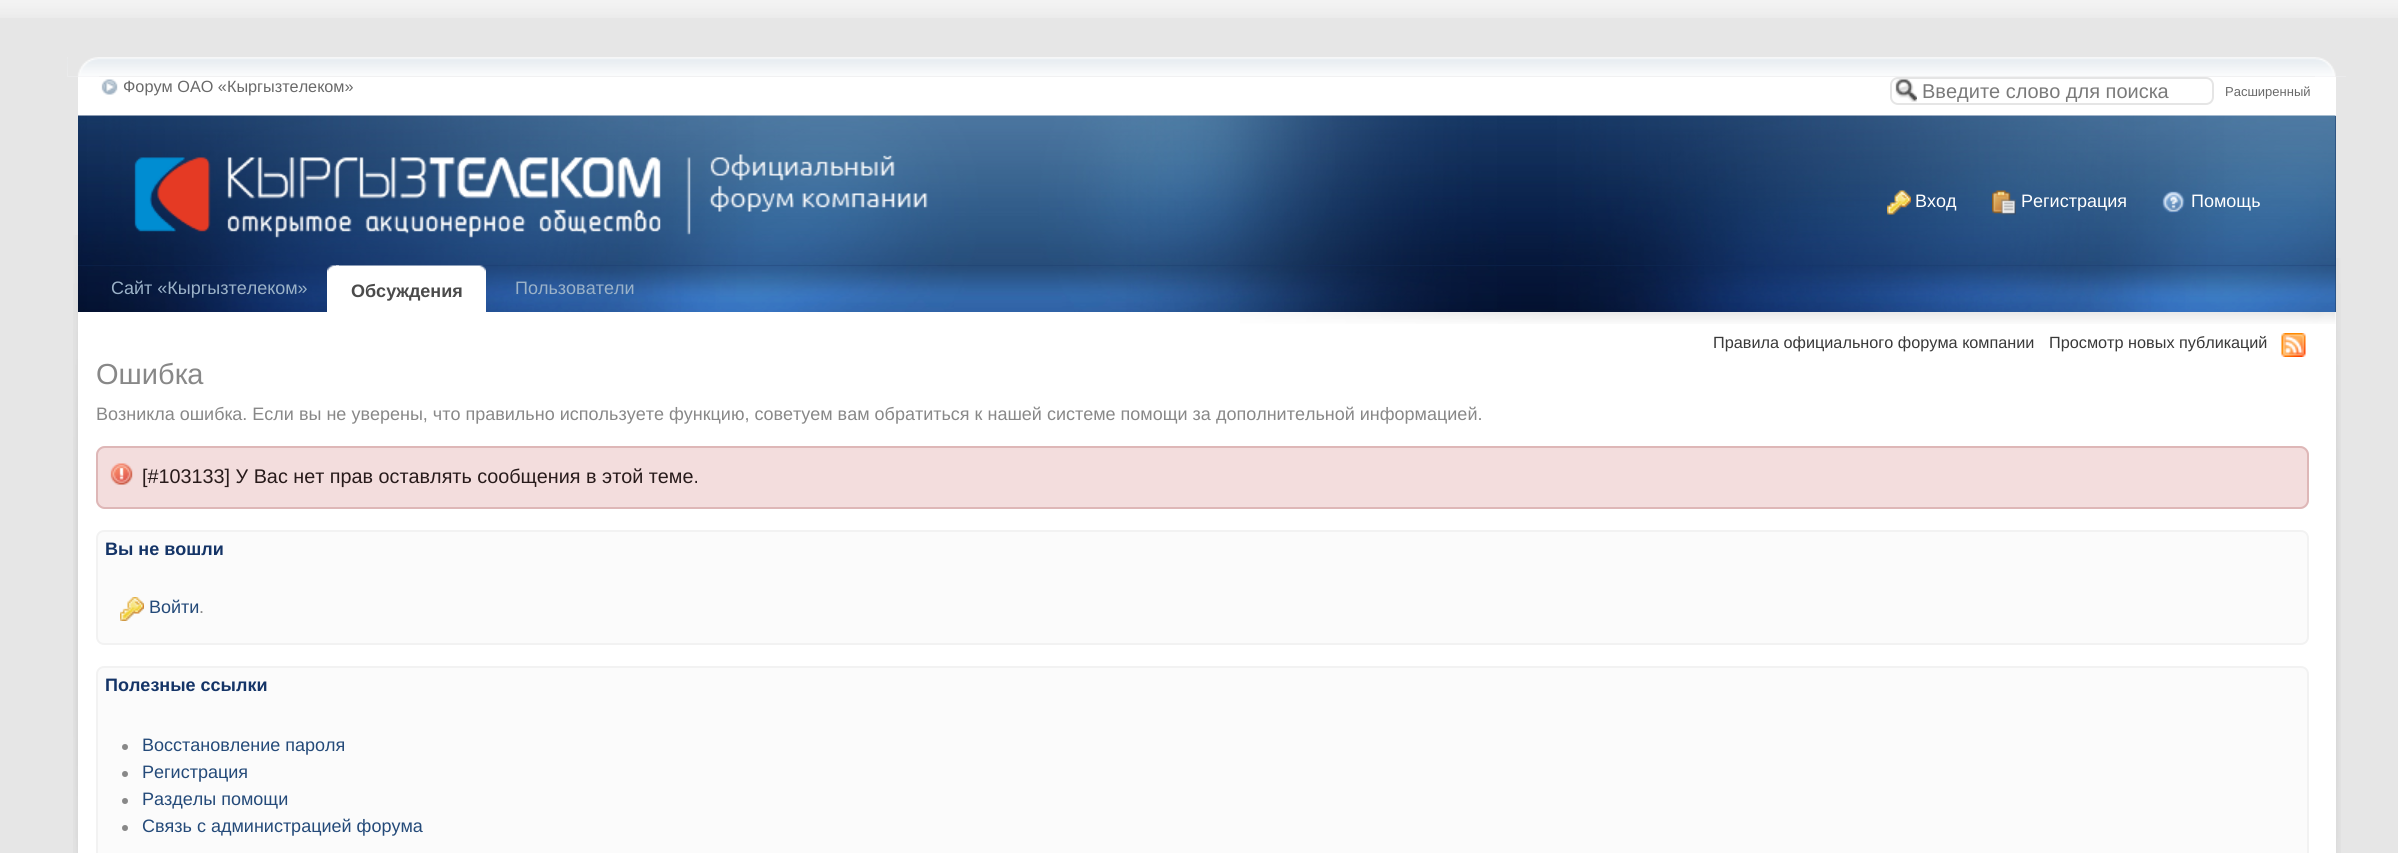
#include <cairo.h>
#include <math.h>
#include <stddef.h>

typedef struct { const char *family; double size; int italic, bold; unsigned color; } style_t;
static cairo_t *ctx;

static void ink(unsigned color) {
    cairo_set_source_rgb(ctx, (color >> 16) / 255.0, (color >> 8 & 255) / 255.0, (color & 255) / 255.0);
}

static void write(double x, double y, const char *s, const style_t *st) {
    cairo_select_font_face(ctx, st->family, st->italic ? CAIRO_FONT_SLANT_ITALIC : CAIRO_FONT_SLANT_NORMAL,
        st->bold ? CAIRO_FONT_WEIGHT_BOLD : CAIRO_FONT_WEIGHT_NORMAL);
    cairo_set_font_size(ctx, st->size);
    ink(st->color);
    cairo_move_to(ctx, x, y);
    cairo_show_text(ctx, s);
}

static void block(double x, double y, double w, double h, unsigned color) {
    ink(color);
    cairo_rectangle(ctx, x, y, w, h);
    cairo_fill(ctx);
}

static void round_path(double x, double y, double w, double h, double r) {
    cairo_new_sub_path(ctx);
    cairo_arc(ctx, x + w - r, y + h - r, r, 0, M_PI / 2);
    cairo_arc(ctx, x + r, y + h - r, r, M_PI / 2, M_PI);
    cairo_arc(ctx, x + r, y + r, r, M_PI, 1.5 * M_PI);
    cairo_arc(ctx, x + w - r, y + r, r, 1.5 * M_PI, 2 * M_PI);
    cairo_close_path(ctx);
}

static void paste(const char *path, double x, double y, double w, double h) {
    cairo_surface_t *image = cairo_image_surface_create_from_png(path);
    cairo_save(ctx);
    cairo_set_source_surface(ctx, image, x, y);
    cairo_rectangle(ctx, x, y, w, h);
    cairo_fill(ctx);
    cairo_restore(ctx);
    cairo_surface_destroy(image);
}

static const style_t s1 = {"Liberation Sans", 16.25, 0, 0, 0x696969};
static const style_t s2 = {"Liberation Sans", 20, 0, 0, 0x7a7a7a};
static const style_t s3 = {"Liberation Sans", 13, 0, 0, 0x696969};
static const style_t s4 = {"Liberation Sans", 18, 0, 0, 0xffffff};
static const style_t s5 = {"Liberation Sans", 18, 0, 0, 0x9bb2c8};
static const style_t s6 = {"Liberation Sans", 18, 0, 1, 0x4b4b4b};
static const style_t s7 = {"Liberation Sans", 16.25, 0, 0, 0x393939};
static const style_t s8 = {"Liberation Sans", 29, 0, 0, 0x888888};
static const style_t s9 = {"Liberation Sans", 18, 0, 0, 0x888888};
static const style_t s10 = {"Liberation Sans", 19.8, 0, 0, 0x281b1b};
static const style_t s11 = {"Liberation Sans", 18, 0, 1, 0x143467};
static const style_t s12 = {"Liberation Sans", 18, 0, 0, 0x244a79};

int main(void) {
    cairo_surface_t *surface = cairo_image_surface_create(CAIRO_FORMAT_RGB24, 2398, 853);
    ctx = cairo_create(surface);
    cairo_font_options_t *options = cairo_font_options_create();
    cairo_font_options_set_hint_metrics(options, CAIRO_HINT_METRICS_OFF);
    cairo_font_options_set_hint_style(options, CAIRO_HINT_STYLE_NONE);
    cairo_set_font_options(ctx, options);
    cairo_set_miter_limit(ctx, 4);
    ink(0xe6e6e6);
    cairo_paint(ctx);
    paste("pic1.png", 0, 0, 2398, 18);
    paste("pic2.png", 67, 57, 2279, 20);
    paste("pic3.png", 67, 57, 32, 20);
    paste("pic4.png", 2315, 57, 31, 20);
    paste("pic5.png", 73, 235, 5, 618);
    paste("pic6.png", 2336, 258, 5, 595);
    block(78, 77, 2258, 776, 0xffffff);
    paste("pic7.png", 101, 79, 17, 16);
    write(123, 92, "Форум ОАО «Кыргызтелеком»", &s1);
    paste("pic8.png", 1895, 79, 22, 23);
    round_path(1891, 78, 322, 26, 7);
    ink(0xe5e5e5);
    cairo_stroke(ctx);
    write(1922, 98, "Введите слово для поиска", &s2);
    write(2225, 96, "Расширенный", &s3);
    block(78, 116, 2258, 150, 0x143467);
    paste("pic9.png", 78, 115, 2258, 151);
    paste("pic10.png", 134, 154, 794, 84);
    paste("pic11.png", 1887, 190, 24, 25);
    write(1915, 207, "Вход", &s4);
    paste("pic12.png", 1992, 190, 24, 25);
    write(2021, 207, "Регистрация", &s4);
    paste("pic13.png", 2162, 191, 23, 22);
    write(2191, 207, "Помощь", &s4);
    block(2335, 266, 1, 46, 0x1f3c63);
    paste("pic14.png", 78, 265, 2258, 47);
    write(111, 294, "Cайт «Кыргызтелеком»", &s5);
    paste("pic15.png", 327, 265, 12, 47);
    paste("pic16.png", 336, 265, 150, 47);
    write(351, 297, "Обсуждения", &s6);
    write(515, 294, "Пользователи", &s5);
    paste("pic17.png", 1240, 312, 1096, 12);
    write(1713, 348, "Правила официального форума компании", &s7);
    write(2049, 348, "Просмотр новых публикаций", &s7);
    paste("pic18.png", 2281, 333, 25, 24);
    write(96, 384, "Ошибка", &s8);
    write(96, 420, "Возникла ошибка. Если вы не уверены, что правильно используете функцию, советуем вам обратиться к нашей системе помощи за дополнительной информацией.", &s9);
    ink(0xf3dddd);
    round_path(96, 446, 2213, 63, 9);
    cairo_fill(ctx);
    paste("pic19.png", 110, 463, 23, 22);
    round_path(97, 447, 2211, 61, 8);
    ink(0xdeb7b7);
    cairo_stroke(ctx);
    write(142, 483, "[#103133] У Вас нет прав оставлять сообщения в этой теме.", &s10);
    ink(0xfbfbfb);
    round_path(97, 531, 2211, 113, 7);
    cairo_fill_preserve(ctx);
    ink(0xf2f2f2);
    cairo_stroke(ctx);
    write(105, 555, "Вы не вошли", &s11);
    paste("pic20.png", 120, 597, 24, 24);
    write(149, 613, "Войти", &s12);
    write(199, 613, ".", &s9);
    ink(0xfbfbfb);
    round_path(97, 667, 2211, 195, 7);
    cairo_fill_preserve(ctx);
    ink(0xf2f2f2);
    cairo_stroke(ctx);
    write(105, 691, "Полезные ссылки", &s11);
    ink(0x888888);
    cairo_new_path(ctx);
    cairo_arc(ctx, 125, 747, 3, 0, 2 * M_PI);
    cairo_fill(ctx);
    write(142, 751, "Восстановление пароля", &s12);
    ink(0x888888);
    cairo_new_path(ctx);
    cairo_arc(ctx, 125, 774, 3, 0, 2 * M_PI);
    cairo_fill(ctx);
    write(142, 778, "Регистрация", &s12);
    ink(0x888888);
    cairo_new_path(ctx);
    cairo_arc(ctx, 125, 801, 3, 0, 2 * M_PI);
    cairo_fill(ctx);
    write(142, 805, "Разделы помощи", &s12);
    ink(0x888888);
    cairo_new_path(ctx);
    cairo_arc(ctx, 125, 828, 3, 0, 2 * M_PI);
    cairo_fill(ctx);
    write(142, 832, "Связь с администрацией форума", &s12);
    cairo_surface_write_to_png(surface, "screenshot.png");
    cairo_font_options_destroy(options);
    cairo_destroy(ctx);
    cairo_surface_destroy(surface);
    return 0;
}
